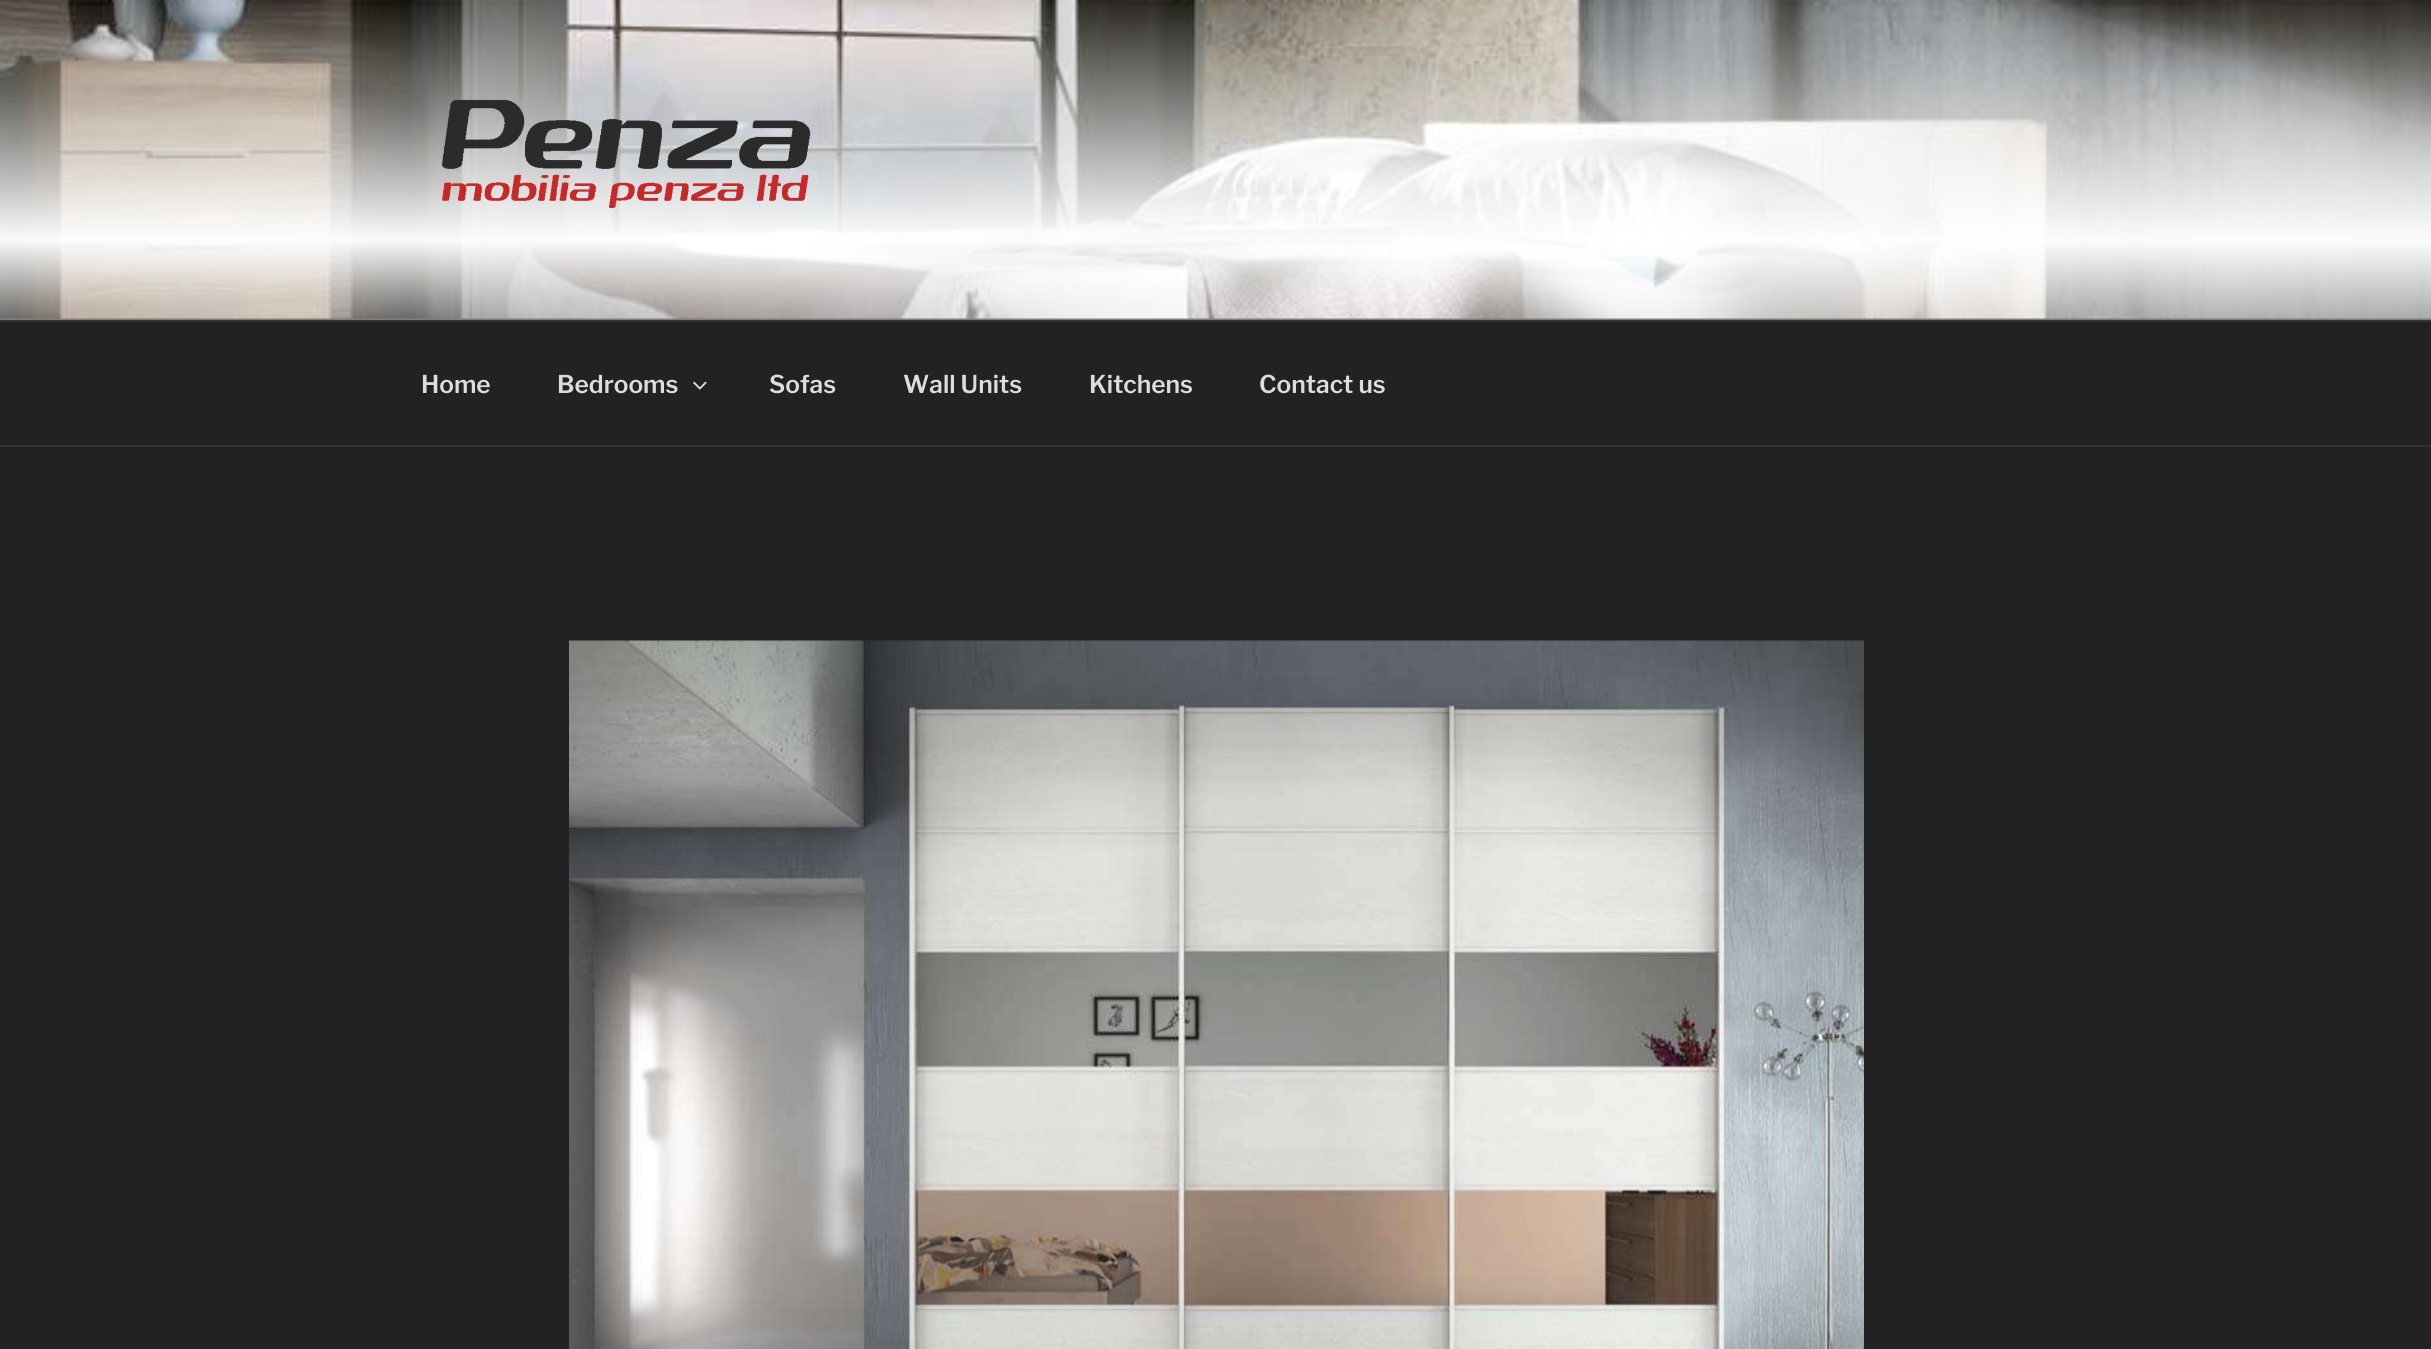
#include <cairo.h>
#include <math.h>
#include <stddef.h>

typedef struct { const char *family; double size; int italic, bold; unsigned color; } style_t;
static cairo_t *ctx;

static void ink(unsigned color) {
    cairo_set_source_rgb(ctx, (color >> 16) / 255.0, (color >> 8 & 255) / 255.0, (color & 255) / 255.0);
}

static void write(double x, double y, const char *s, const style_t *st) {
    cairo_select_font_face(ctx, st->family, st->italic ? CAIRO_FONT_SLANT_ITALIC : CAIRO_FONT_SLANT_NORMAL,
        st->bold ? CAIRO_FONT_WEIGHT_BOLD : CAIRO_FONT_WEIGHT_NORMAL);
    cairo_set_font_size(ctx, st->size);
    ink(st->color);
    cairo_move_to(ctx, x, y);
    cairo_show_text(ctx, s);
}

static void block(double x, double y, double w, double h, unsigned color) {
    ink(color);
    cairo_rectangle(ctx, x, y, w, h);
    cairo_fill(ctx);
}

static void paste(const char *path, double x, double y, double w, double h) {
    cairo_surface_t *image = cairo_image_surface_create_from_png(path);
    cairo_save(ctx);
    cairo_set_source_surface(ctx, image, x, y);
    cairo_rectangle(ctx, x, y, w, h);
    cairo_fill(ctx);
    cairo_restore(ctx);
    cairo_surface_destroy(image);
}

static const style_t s1 = {"Libre Franklin Thin", 24.5, 0, 0, 0xdddddd};

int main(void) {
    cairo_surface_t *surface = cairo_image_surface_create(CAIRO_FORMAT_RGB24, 2431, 1349);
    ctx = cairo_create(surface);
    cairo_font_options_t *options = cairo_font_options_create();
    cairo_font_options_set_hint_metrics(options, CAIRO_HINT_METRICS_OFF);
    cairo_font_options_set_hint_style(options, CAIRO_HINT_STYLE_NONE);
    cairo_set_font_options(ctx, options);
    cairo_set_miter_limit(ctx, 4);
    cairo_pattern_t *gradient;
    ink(0x222222);
    cairo_paint(ctx);
    block(0, 318, 2431, 2, 0x262626);
    paste("pic1.png", 0, 0, 2431, 319);
    gradient = cairo_pattern_create_linear(1216, 0, 1216, 320);
    cairo_pattern_add_color_stop_rgba(gradient, 0, 1, 1, 1, 0);
    cairo_pattern_add_color_stop_rgba(gradient, 0.75, 1, 1, 1, 0.98);
    cairo_pattern_add_color_stop_rgba(gradient, 1, 1, 1, 1, 0.4);
    cairo_set_source(ctx, gradient);
    cairo_pattern_destroy(gradient);
    cairo_rectangle(ctx, 0, 5, 2431, 315);
    cairo_fill(ctx);
    paste("pic2.png", 441, 99, 370, 110);
    block(0, 320, 2431, 2, 0x333333);
    block(0, 445, 2431, 2, 0x333333);
    write(421, 393, "Home", &s1);
    write(557, 393, "Bedrooms", &s1);
    paste("pic3.png", 693, 381, 14, 9);
    write(769, 393, "Sofas", &s1);
    write(903, 393, "Wall Units", &s1);
    write(1089, 393, "Kitchens", &s1);
    write(1259, 393, "Contact us", &s1);
    paste("pic4.png", 569, 640, 1295, 709);
    cairo_surface_write_to_png(surface, "screenshot.png");
    cairo_font_options_destroy(options);
    cairo_destroy(ctx);
    cairo_surface_destroy(surface);
    return 0;
}
